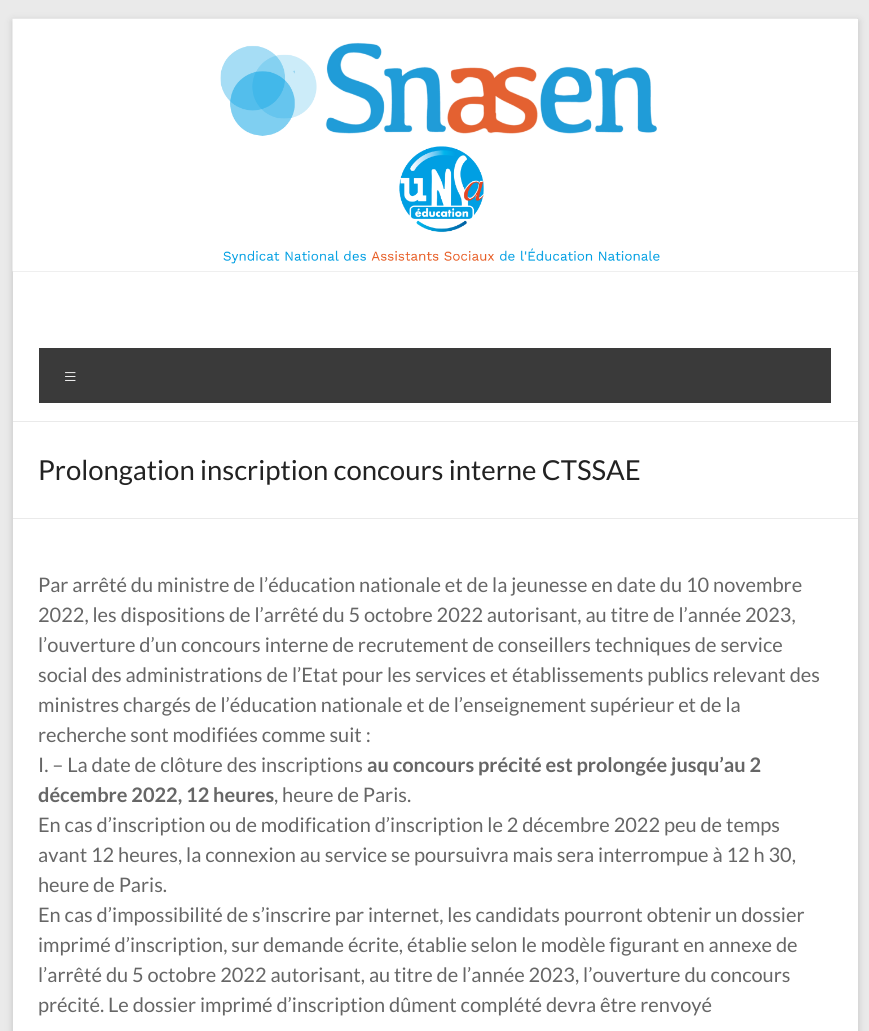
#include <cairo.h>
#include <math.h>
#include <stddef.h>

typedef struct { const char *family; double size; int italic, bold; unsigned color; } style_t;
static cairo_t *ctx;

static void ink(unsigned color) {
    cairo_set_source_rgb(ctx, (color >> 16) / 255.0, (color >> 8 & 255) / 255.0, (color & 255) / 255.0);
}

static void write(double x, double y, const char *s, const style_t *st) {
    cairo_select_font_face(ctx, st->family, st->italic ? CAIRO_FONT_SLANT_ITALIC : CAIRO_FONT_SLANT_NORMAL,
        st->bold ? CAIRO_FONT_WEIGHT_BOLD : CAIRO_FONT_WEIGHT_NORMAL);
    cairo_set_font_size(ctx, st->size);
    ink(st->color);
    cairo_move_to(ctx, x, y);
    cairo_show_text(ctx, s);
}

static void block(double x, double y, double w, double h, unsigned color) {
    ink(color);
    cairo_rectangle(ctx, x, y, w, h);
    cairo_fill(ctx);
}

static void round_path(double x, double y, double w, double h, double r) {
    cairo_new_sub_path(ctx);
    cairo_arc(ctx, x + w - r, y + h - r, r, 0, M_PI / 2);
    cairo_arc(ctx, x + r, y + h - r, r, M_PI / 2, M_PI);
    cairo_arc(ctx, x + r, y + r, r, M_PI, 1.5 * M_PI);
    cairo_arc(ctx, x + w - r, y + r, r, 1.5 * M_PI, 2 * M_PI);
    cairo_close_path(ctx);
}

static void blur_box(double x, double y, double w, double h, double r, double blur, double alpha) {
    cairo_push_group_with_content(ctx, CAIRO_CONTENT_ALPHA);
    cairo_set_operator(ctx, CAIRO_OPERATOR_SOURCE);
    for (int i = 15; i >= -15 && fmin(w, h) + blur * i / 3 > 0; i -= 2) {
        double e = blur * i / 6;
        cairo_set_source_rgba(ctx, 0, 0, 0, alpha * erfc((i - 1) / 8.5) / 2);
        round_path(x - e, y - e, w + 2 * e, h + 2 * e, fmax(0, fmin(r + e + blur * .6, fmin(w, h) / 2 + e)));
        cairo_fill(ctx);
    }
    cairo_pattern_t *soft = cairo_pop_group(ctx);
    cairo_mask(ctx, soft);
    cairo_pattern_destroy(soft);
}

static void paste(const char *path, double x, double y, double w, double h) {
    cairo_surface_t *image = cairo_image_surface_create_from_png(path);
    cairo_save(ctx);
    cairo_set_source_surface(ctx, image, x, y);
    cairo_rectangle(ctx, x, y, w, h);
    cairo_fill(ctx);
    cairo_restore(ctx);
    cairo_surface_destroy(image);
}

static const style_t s1 = {"Lato Light", 25, 0, 0, 0xffffff};
static const style_t s2 = {"Lato", 27.5, 0, 0, 0x222222};
static const style_t s3 = {"Lato", 20, 0, 0, 0x666666};
static const style_t s4 = {"Lato", 20, 0, 1, 0x666666};

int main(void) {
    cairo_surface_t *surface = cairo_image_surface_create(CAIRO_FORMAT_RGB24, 869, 1031);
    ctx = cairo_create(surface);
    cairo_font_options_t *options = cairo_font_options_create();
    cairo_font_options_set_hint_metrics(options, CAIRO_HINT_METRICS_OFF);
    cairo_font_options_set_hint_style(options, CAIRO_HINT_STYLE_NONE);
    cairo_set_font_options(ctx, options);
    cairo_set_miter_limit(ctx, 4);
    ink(0xeaeaea);
    cairo_paint(ctx);
    ink(0x646464);
    blur_box(13, 21, 845, 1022, 0, 4, 0.3);
    block(13, 19, 845, 1012, 0xffffff);
    block(13, 271, 845, 1, 0xeaeaea);
    paste("pic1.png", 12, 18, 845, 254);
    block(13, 421, 845, 1, 0xeaeaea);
    block(39, 348, 792, 55, 0x3a3a3a);
    write(63, 385, "≡", &s1);
    block(13, 518, 845, 1, 0xeaeaea);
    write(38, 480, "Prolongation inscription concours interne CTSSAE", &s2);
    write(38, 592, "Par arrêté du ministre de l’éducation nationale et de la jeunesse en date du 10 novembre", &s3);
    write(38, 622, "2022, les dispositions de l’arrêté du 5 octobre 2022 autorisant, au titre de l’année 2023,", &s3);
    write(38, 652, "l’ouverture d’un concours interne de recrutement de conseillers techniques de service", &s3);
    write(38, 682, "social des administrations de l’Etat pour les services et établissements publics relevant des", &s3);
    write(38, 712, "ministres chargés de l’éducation nationale et de l’enseignement supérieur et de la", &s3);
    write(38, 742, "recherche sont modifiées comme suit :", &s3);
    write(38, 772, "I. – La date de clôture des inscriptions", &s3);
    write(367, 772, "au concours précité est prolongée jusqu’au 2", &s4);
    write(38, 802, "décembre 2022, 12 heures", &s4);
    write(274, 802, ", heure de Paris.", &s3);
    write(38, 832, "En cas d’inscription ou de modification d’inscription le 2 décembre 2022 peu de temps", &s3);
    write(38, 862, "avant 12 heures, la connexion au service se poursuivra mais sera interrompue à 12 h 30,", &s3);
    write(38, 892, "heure de Paris.", &s3);
    write(38, 922, "En cas d’impossibilité de s’inscrire par internet, les candidats pourront obtenir un dossier", &s3);
    write(38, 952, "imprimé d’inscription, sur demande écrite, établie selon le modèle figurant en annexe de", &s3);
    write(38, 982, "l’arrêté du 5 octobre 2022 autorisant, au titre de l’année 2023, l’ouverture du concours", &s3);
    write(38, 1012, "précité. Le dossier imprimé d’inscription dûment complété devra être renvoyé", &s3);
    cairo_surface_write_to_png(surface, "screenshot.png");
    cairo_font_options_destroy(options);
    cairo_destroy(ctx);
    cairo_surface_destroy(surface);
    return 0;
}
